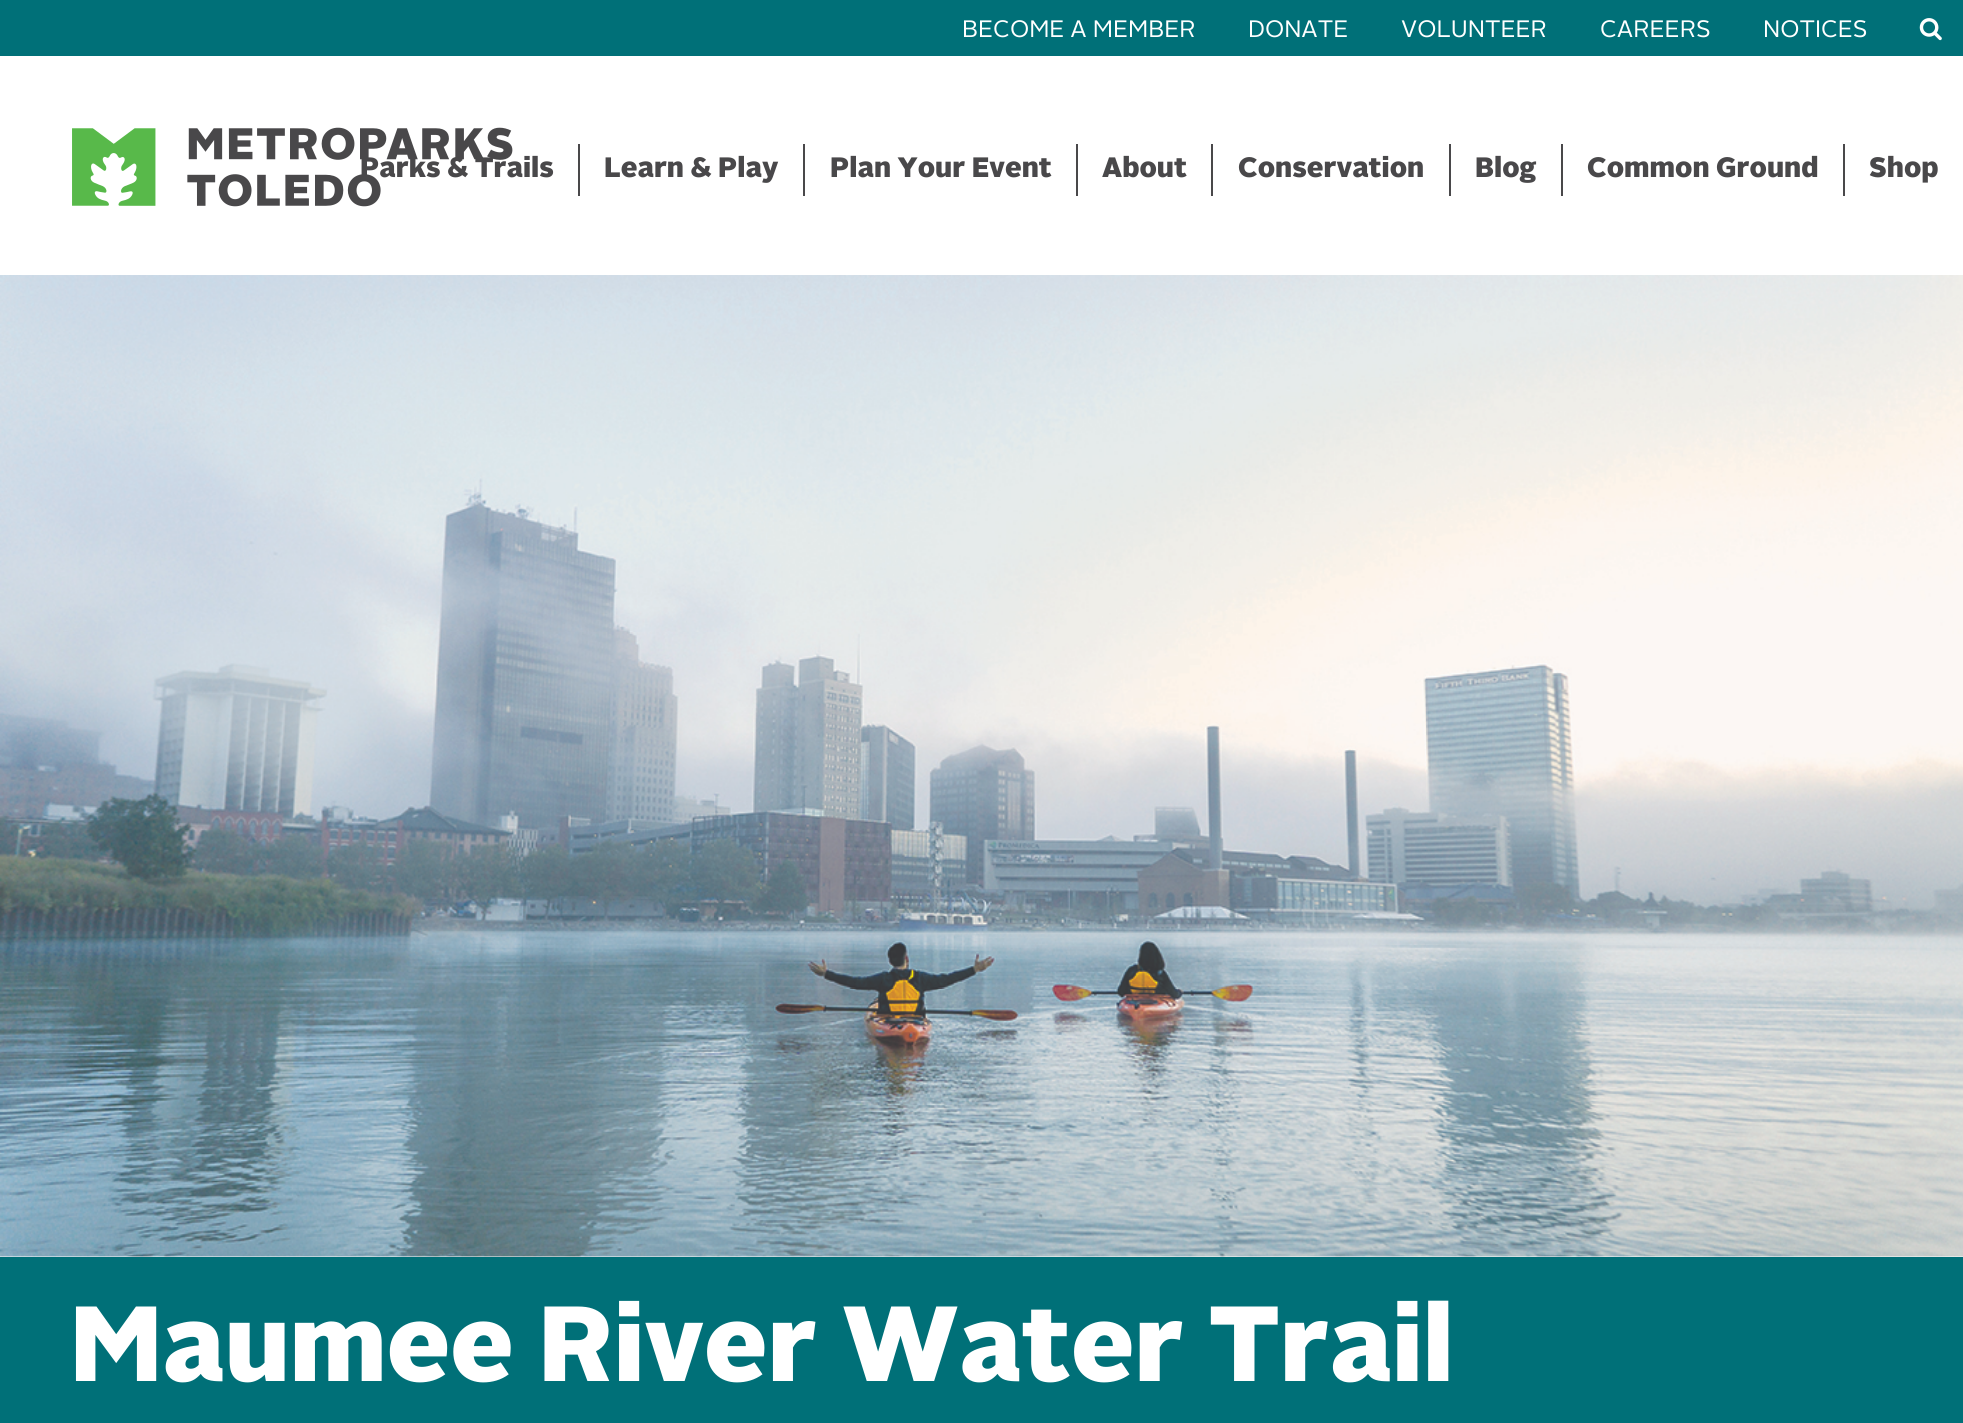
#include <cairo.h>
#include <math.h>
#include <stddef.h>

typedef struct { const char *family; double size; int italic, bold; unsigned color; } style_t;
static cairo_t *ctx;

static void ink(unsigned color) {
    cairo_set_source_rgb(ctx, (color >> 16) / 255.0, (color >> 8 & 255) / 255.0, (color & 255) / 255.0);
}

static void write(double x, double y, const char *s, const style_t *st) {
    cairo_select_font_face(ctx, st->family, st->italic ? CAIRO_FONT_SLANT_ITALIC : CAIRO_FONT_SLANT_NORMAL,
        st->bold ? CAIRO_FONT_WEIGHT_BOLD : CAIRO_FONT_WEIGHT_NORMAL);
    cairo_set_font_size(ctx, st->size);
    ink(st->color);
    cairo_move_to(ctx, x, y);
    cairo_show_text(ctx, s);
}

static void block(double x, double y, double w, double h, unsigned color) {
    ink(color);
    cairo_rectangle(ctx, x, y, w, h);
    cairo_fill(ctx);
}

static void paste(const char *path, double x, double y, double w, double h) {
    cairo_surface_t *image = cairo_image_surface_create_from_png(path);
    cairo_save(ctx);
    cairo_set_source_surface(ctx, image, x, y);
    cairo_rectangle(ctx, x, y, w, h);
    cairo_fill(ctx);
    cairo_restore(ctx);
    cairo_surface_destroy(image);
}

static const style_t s1 = {"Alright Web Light", 23.75, 0, 0, 0xffffff};
static const style_t s2 = {"Alright Web", 28, 0, 0, 0x49484a};
static const style_t s3 = {"Alright Web", 106.4, 0, 0, 0xffffff};

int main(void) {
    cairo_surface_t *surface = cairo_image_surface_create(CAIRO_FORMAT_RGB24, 1963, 1423);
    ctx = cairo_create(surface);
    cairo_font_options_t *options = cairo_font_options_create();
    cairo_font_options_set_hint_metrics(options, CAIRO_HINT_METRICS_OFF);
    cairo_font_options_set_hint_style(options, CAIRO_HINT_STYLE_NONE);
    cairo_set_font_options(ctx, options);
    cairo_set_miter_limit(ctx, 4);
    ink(0xffffff);
    cairo_paint(ctx);
    block(0, 0, 1963, 56, 0x007078);
    write(962, 37, "BECOME A MEMBER", &s1);
    write(1248, 37, "DONATE", &s1);
    write(1401, 37, "VOLUNTEER", &s1);
    write(1600, 37, "CAREERS", &s1);
    write(1763, 37, "NOTICES", &s1);
    paste("pic1.png", 1919, 18, 23, 23);
    paste("pic2.png", 72, 127, 441, 80);
    write(360, 177, "Parks & Trails", &s2);
    block(578, 144, 2, 52, 0x49484a);
    write(604, 177, "Learn & Play", &s2);
    block(803, 144, 2, 52, 0x49484a);
    write(830, 177, "Plan Your Event", &s2);
    block(1076, 144, 2, 52, 0x49484a);
    write(1102, 177, "About", &s2);
    block(1211, 144, 2, 52, 0x49484a);
    write(1238, 177, "Conservation", &s2);
    block(1449, 144, 2, 52, 0x49484a);
    write(1475, 177, "Blog", &s2);
    block(1561, 144, 2, 52, 0x49484a);
    write(1587, 177, "Common Ground", &s2);
    block(1843, 144, 2, 52, 0x49484a);
    write(1869, 177, "Shop", &s2);
    paste("pic3.png", 0, 275, 1963, 982);
    block(0, 1257, 1963, 166, 0x007078);
    write(70, 1381, "Maumee River Water Trail", &s3);
    cairo_surface_write_to_png(surface, "screenshot.png");
    cairo_font_options_destroy(options);
    cairo_destroy(ctx);
    cairo_surface_destroy(surface);
    return 0;
}
